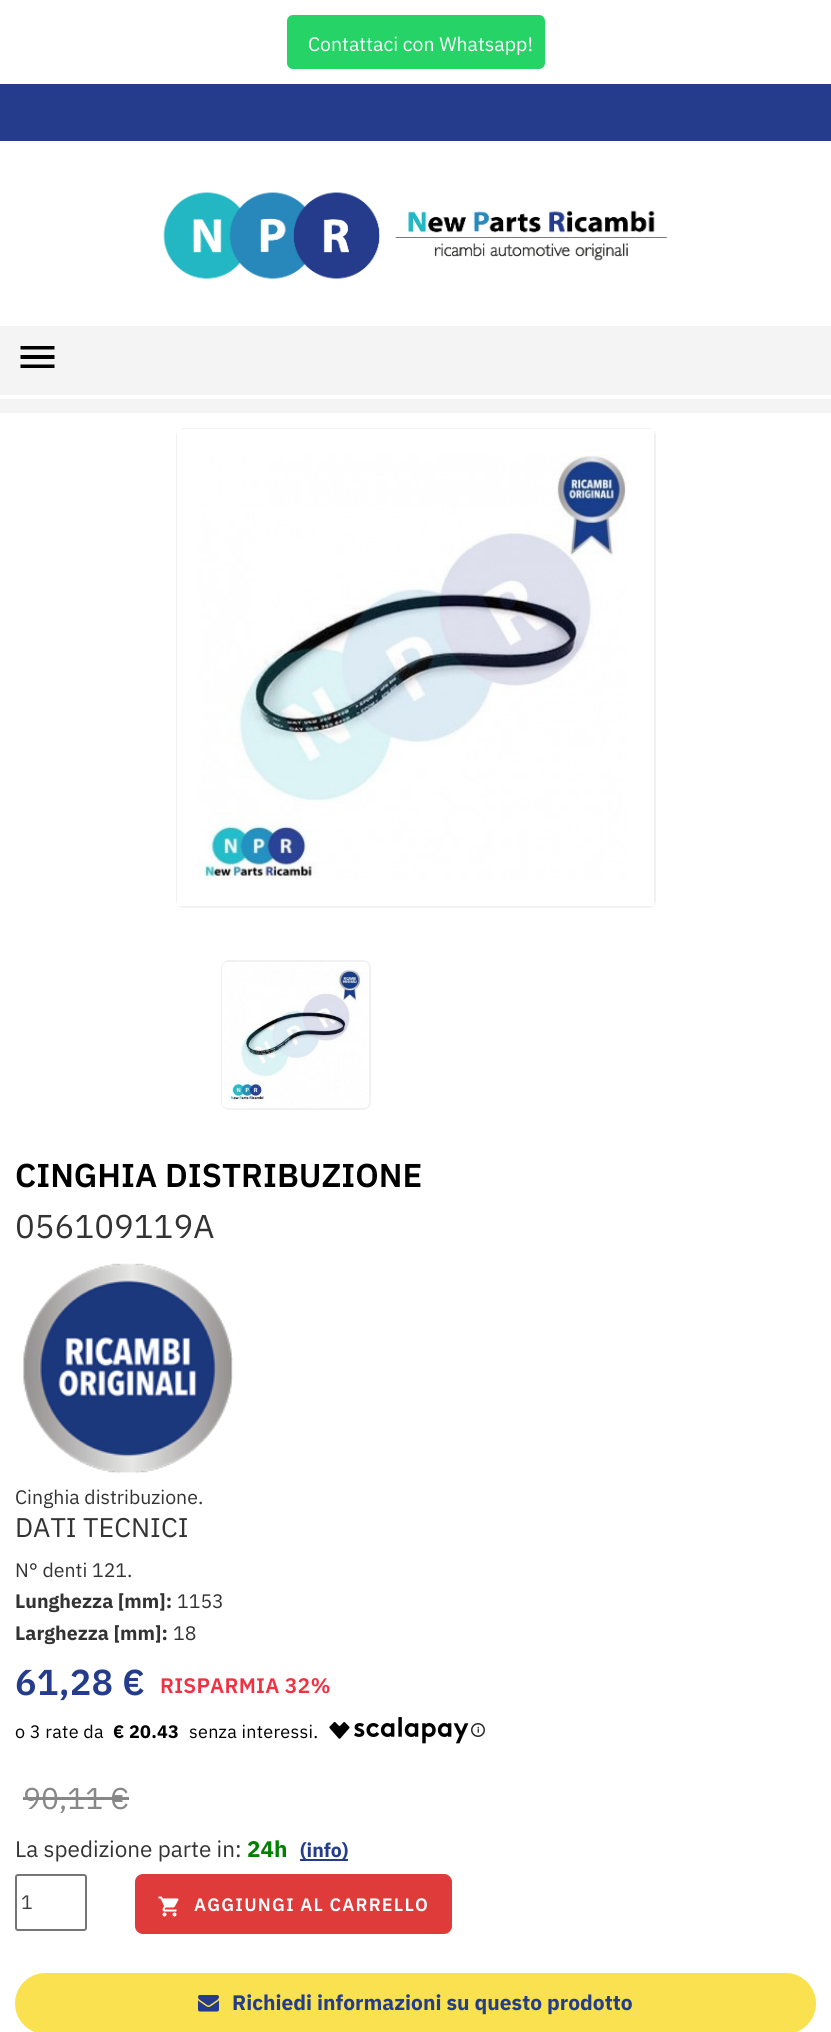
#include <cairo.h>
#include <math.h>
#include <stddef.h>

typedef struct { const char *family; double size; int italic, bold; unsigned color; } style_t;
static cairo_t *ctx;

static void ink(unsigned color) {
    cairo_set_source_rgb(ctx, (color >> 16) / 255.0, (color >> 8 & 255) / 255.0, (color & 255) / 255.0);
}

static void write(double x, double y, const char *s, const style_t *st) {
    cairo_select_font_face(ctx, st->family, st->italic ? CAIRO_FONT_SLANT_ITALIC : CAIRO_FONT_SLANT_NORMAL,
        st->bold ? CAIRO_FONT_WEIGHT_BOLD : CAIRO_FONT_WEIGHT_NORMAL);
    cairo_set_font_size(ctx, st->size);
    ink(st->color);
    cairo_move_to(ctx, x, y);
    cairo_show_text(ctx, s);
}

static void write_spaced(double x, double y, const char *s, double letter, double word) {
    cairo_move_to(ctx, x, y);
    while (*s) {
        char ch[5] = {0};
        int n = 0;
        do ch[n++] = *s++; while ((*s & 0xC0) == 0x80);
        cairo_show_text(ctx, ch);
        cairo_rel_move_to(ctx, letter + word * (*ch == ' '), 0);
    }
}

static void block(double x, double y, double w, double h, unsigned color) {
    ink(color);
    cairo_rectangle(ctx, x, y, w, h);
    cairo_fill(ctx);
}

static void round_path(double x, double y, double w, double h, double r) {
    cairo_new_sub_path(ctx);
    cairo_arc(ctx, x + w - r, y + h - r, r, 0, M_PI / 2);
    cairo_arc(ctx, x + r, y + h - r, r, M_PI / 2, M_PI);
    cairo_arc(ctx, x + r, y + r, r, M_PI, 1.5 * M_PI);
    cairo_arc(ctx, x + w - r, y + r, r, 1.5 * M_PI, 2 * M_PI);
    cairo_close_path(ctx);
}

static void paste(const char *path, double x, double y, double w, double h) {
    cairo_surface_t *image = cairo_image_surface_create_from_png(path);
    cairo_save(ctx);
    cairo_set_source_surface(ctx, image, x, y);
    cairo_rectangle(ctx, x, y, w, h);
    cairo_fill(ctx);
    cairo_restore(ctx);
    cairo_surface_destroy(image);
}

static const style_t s1 = {"IBM Plex Sans", 19.5, 0, 0, 0xffffff};
static const style_t s2 = {"IBM Plex Sans SemiBold", 33, 0, 0, 0x000000};
static const style_t s3 = {"IBM Plex Sans", 33, 0, 0, 0x333333};
static const style_t s4 = {"IBM Plex Sans", 19.5, 0, 0, 0x333333};
static const style_t s5 = {"IBM Plex Sans", 27, 0, 0, 0x333333};
static const style_t s6 = {"IBM Plex Sans", 19.5, 0, 1, 0x333333};
static const style_t s7 = {"IBM Plex Sans", 30, 0, 0, 0x878787};
static const style_t s8 = {"IBM Plex Sans", 22.5, 0, 0, 0x333333};
static const style_t s9 = {"IBM Plex Sans", 22.5, 0, 1, 0x008000};
static const style_t s10 = {"IBM Plex Sans", 19.5, 0, 1, 0x243c8b};
static const style_t s11 = {"IBM Plex Sans", 19.5, 0, 0, 0x414141};
static const style_t s12 = {"IBM Plex Sans", 21, 0, 1, 0x243c8b};

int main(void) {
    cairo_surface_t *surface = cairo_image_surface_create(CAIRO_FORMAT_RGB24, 831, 2032);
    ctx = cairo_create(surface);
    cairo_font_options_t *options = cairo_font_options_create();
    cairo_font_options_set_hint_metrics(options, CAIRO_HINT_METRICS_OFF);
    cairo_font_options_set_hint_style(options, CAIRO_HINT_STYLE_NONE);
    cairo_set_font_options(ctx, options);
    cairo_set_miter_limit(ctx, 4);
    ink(0xffffff);
    cairo_paint(ctx);
    ink(0x25d366);
    round_path(287, 15, 258, 54, 6);
    cairo_fill(ctx);
    write(308, 51, "Contattaci con Whatsapp!", &s1);
    block(0, 84, 831, 57, 0x243c8b);
    paste("pic1.png", 163, 192, 505, 87);
    block(0, 326, 831, 69, 0xf4f4f4);
    ink(0x000000);
    cairo_new_path(ctx);
    cairo_move_to(ctx, 20.5, 346);
    cairo_line_to(ctx, 54.5, 346);
    cairo_line_to(ctx, 54.5, 349.5);
    cairo_line_to(ctx, 20.5, 349.5);
    cairo_close_path(ctx);
    cairo_move_to(ctx, 20.5, 359);
    cairo_line_to(ctx, 20.5, 355);
    cairo_line_to(ctx, 54.5, 355);
    cairo_line_to(ctx, 54.5, 359);
    cairo_close_path(ctx);
    cairo_move_to(ctx, 20.5, 368);
    cairo_line_to(ctx, 20.5, 364.5);
    cairo_line_to(ctx, 54.5, 364.5);
    cairo_line_to(ctx, 54.5, 368);
    cairo_close_path(ctx);
    cairo_fill(ctx);
    block(0, 399, 831, 14, 0xf4f4f4);
    round_path(177, 429, 478, 478, 7);
    ink(0xf1f1f1);
    cairo_stroke(ctx);
    block(177, 429, 477, 477, 0xffffff);
    paste("pic2.png", 197, 454, 430, 425);
    round_path(222, 961, 148, 148, 7);
    ink(0xf1f1f1);
    cairo_stroke(ctx);
    paste("pic3.png", 222, 962, 146, 146);
    write(15, 1187, "CINGHIA DISTRIBUZIONE", &s2);
    write(15, 1238, "056109119A", &s3);
    paste("pic4.png", 23, 1263, 210, 211);
    write(15, 1504, "Cinghia distribuzione.", &s4);
    write(15, 1537, "DATI TECNICI", &s5);
    write(15, 1577, "N° denti 121.", &s4);
    write(15, 1608, "Lunghezza [mm]:", &s6);
    write(177, 1608, "1153", &s4);
    write(15, 1640, "Larghezza [mm]:", &s6);
    write(173, 1640, "18", &s4);
    cairo_select_font_face(ctx, "IBM Plex Sans SemiBold", CAIRO_FONT_SLANT_NORMAL, CAIRO_FONT_WEIGHT_NORMAL);
    cairo_set_font_size(ctx, 36);
    ink(0x243c8b);
    write_spaced(15, 1695, "61,28 €", 0.25, 0);
    cairo_set_font_size(ctx, 21);
    ink(0xf13042);
    write_spaced(160, 1693, "RISPARMIA 32%", 0.25, 0);
    cairo_select_font_face(ctx, "IBM Plex Sans", CAIRO_FONT_SLANT_NORMAL, CAIRO_FONT_WEIGHT_NORMAL);
    cairo_set_font_size(ctx, 18);
    ink(0x000000);
    write_spaced(15, 1738, "o 3 rate da", 0.25, 0);
    cairo_select_font_face(ctx, "IBM Plex Sans", CAIRO_FONT_SLANT_NORMAL, CAIRO_FONT_WEIGHT_BOLD);
    write_spaced(113, 1738, "€ 20.43", 0.25, 0);
    cairo_select_font_face(ctx, "IBM Plex Sans", CAIRO_FONT_SLANT_NORMAL, CAIRO_FONT_WEIGHT_NORMAL);
    write_spaced(189, 1738, "senza interessi.", 0.25, 0);
    paste("pic5.png", 329, 1717, 140, 27);
    paste("pic6.png", 471, 1723, 14, 14);
    write(23, 1809, "90,11 €", &s7);
    block(23, 1797, 106, 3, 0x878787);
    write(15, 1857, "La spedizione parte in:", &s8);
    write(247, 1857, "24h", &s9);
    block(300, 1859, 48, 2, 0x243c8b);
    write(300, 1857, "(info)", &s10);
    round_path(16, 1875, 70, 55, 2);
    ink(0x767676);
    cairo_stroke(ctx);
    write(21, 1909, "1", &s11);
    ink(0xe03b3b);
    round_path(135, 1874, 317, 60, 8);
    cairo_fill(ctx);
    paste("pic7.png", 158, 1896, 21, 21);
    cairo_select_font_face(ctx, "IBM Plex Sans SemiBold", CAIRO_FONT_SLANT_NORMAL, CAIRO_FONT_WEIGHT_NORMAL);
    cairo_set_font_size(ctx, 18);
    ink(0xffffff);
    write_spaced(194, 1911, "AGGIUNGI AL CARRELLO", 1.2, 0);
    ink(0xf9e150);
    round_path(15, 1973, 801, 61, 30.5);
    cairo_fill(ctx);
    paste("pic8.png", 198, 1995, 21, 17);
    write(232, 2010, "Richiedi informazioni su questo prodotto", &s12);
    cairo_surface_write_to_png(surface, "screenshot.png");
    cairo_font_options_destroy(options);
    cairo_destroy(ctx);
    cairo_surface_destroy(surface);
    return 0;
}
